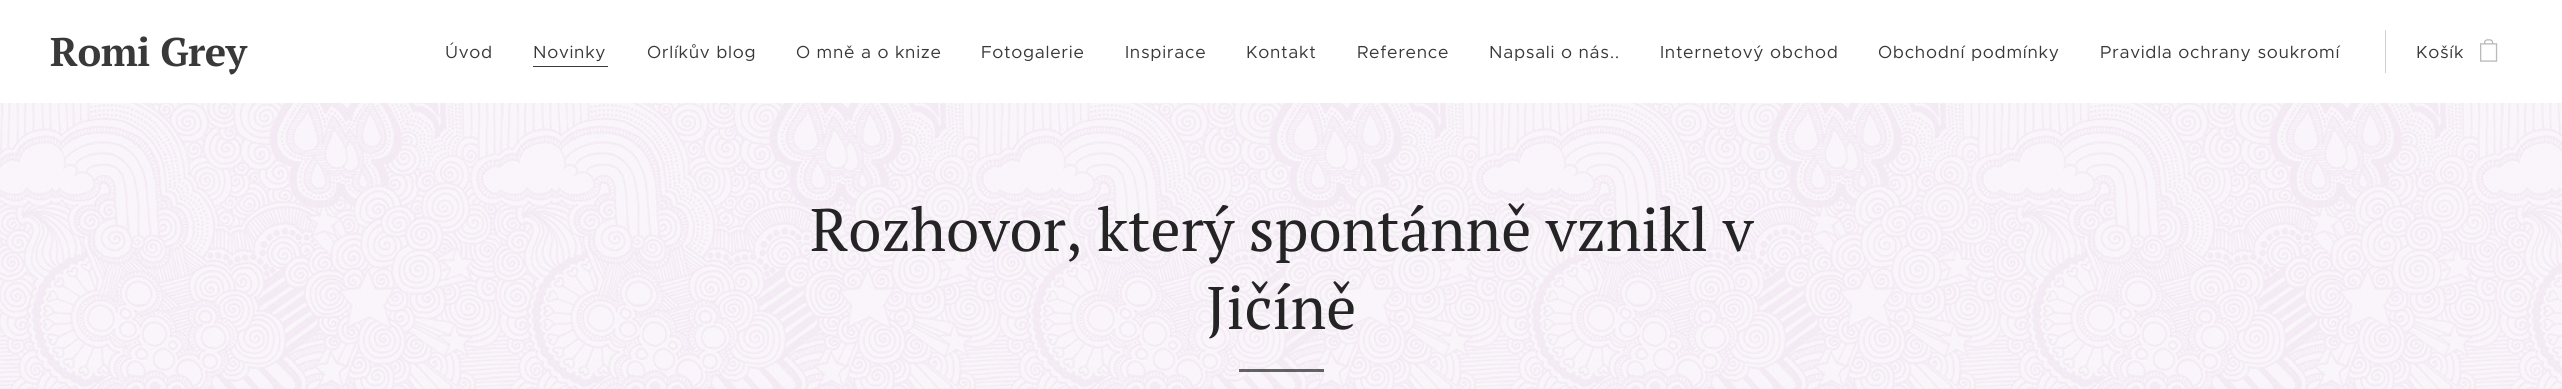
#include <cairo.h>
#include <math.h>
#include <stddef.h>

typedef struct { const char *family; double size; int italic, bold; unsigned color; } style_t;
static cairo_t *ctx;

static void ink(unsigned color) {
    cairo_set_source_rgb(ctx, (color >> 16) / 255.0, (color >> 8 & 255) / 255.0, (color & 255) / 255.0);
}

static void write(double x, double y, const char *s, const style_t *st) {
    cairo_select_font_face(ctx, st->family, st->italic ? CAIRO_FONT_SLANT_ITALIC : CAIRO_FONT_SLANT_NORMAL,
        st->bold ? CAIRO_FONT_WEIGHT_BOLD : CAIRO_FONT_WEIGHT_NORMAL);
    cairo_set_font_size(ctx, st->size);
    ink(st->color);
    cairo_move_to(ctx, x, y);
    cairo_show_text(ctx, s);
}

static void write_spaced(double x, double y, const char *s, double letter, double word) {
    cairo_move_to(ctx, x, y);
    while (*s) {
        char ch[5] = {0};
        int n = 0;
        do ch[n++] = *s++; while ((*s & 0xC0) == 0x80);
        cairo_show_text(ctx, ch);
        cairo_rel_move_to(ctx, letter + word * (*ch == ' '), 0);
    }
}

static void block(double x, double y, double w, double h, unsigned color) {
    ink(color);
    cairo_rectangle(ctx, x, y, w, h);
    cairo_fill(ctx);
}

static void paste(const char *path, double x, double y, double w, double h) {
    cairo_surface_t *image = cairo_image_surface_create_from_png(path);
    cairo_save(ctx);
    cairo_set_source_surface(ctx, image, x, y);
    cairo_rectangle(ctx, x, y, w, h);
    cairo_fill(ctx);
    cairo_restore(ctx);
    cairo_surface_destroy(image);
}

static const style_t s1 = {"PT Serif", 60, 0, 0, 0x252425};

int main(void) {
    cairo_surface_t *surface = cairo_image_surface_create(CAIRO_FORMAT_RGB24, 2562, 389);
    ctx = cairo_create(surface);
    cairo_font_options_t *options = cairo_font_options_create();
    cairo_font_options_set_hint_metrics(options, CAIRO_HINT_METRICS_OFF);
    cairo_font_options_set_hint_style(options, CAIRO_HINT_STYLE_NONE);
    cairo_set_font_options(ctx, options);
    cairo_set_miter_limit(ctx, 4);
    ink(0xffffff);
    cairo_paint(ctx);
    cairo_select_font_face(ctx, "PT Serif", CAIRO_FONT_SLANT_NORMAL, CAIRO_FONT_WEIGHT_BOLD);
    cairo_set_font_size(ctx, 40);
    ink(0x393939);
    write_spaced(50, 66, "Romi Grey", -0.5, 0);
    cairo_select_font_face(ctx, "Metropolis", CAIRO_FONT_SLANT_NORMAL, CAIRO_FONT_WEIGHT_NORMAL);
    cairo_set_font_size(ctx, 17.5);
    write_spaced(445, 58, "Úvod", 0.7, 0);
    write_spaced(533, 58, "Novinky", 0.7, 0);
    block(533, 66, 75, 1, 0x393939);
    write_spaced(647, 58, "Orlíkův blog", 0.7, 0);
    write_spaced(796, 58, "O mně a o knize", 0.7, 0);
    write_spaced(981, 58, "Fotogalerie", 0.7, 0);
    write_spaced(1125, 58, "Inspirace", 0.7, 0);
    write_spaced(1246, 58, "Kontakt", 0.7, 0);
    write_spaced(1357, 58, "Reference", 0.7, 0);
    write_spaced(1489, 58, "Napsali o nás..", 0.7, 0);
    write_spaced(1660, 58, "Internetový obchod", 0.7, 0);
    write_spaced(1878, 58, "Obchodní podmínky", 0.7, 0);
    write_spaced(2100, 58, "Pravidla ochrany soukromí", 0.7, 0);
    block(2385, 30, 1, 43, 0xd1d1d1);
    ink(0x393939);
    write_spaced(2416, 58, "Košík", 0.7, 0);
    paste("pic1.png", 2480, 39, 18, 23);
    paste("pic2.png", 0, 103, 2562, 286);
    write(810, 251, "Rozhovor, který spontánně vznikl v", &s1);
    write(1206, 329, "Jičíně", &s1);
    cairo_set_source_rgba(ctx, 0, 0, 0, 0.6);
    cairo_rectangle(ctx, 1239, 369, 85, 3);
    cairo_fill(ctx);
    cairo_surface_write_to_png(surface, "screenshot.png");
    cairo_font_options_destroy(options);
    cairo_destroy(ctx);
    cairo_surface_destroy(surface);
    return 0;
}
